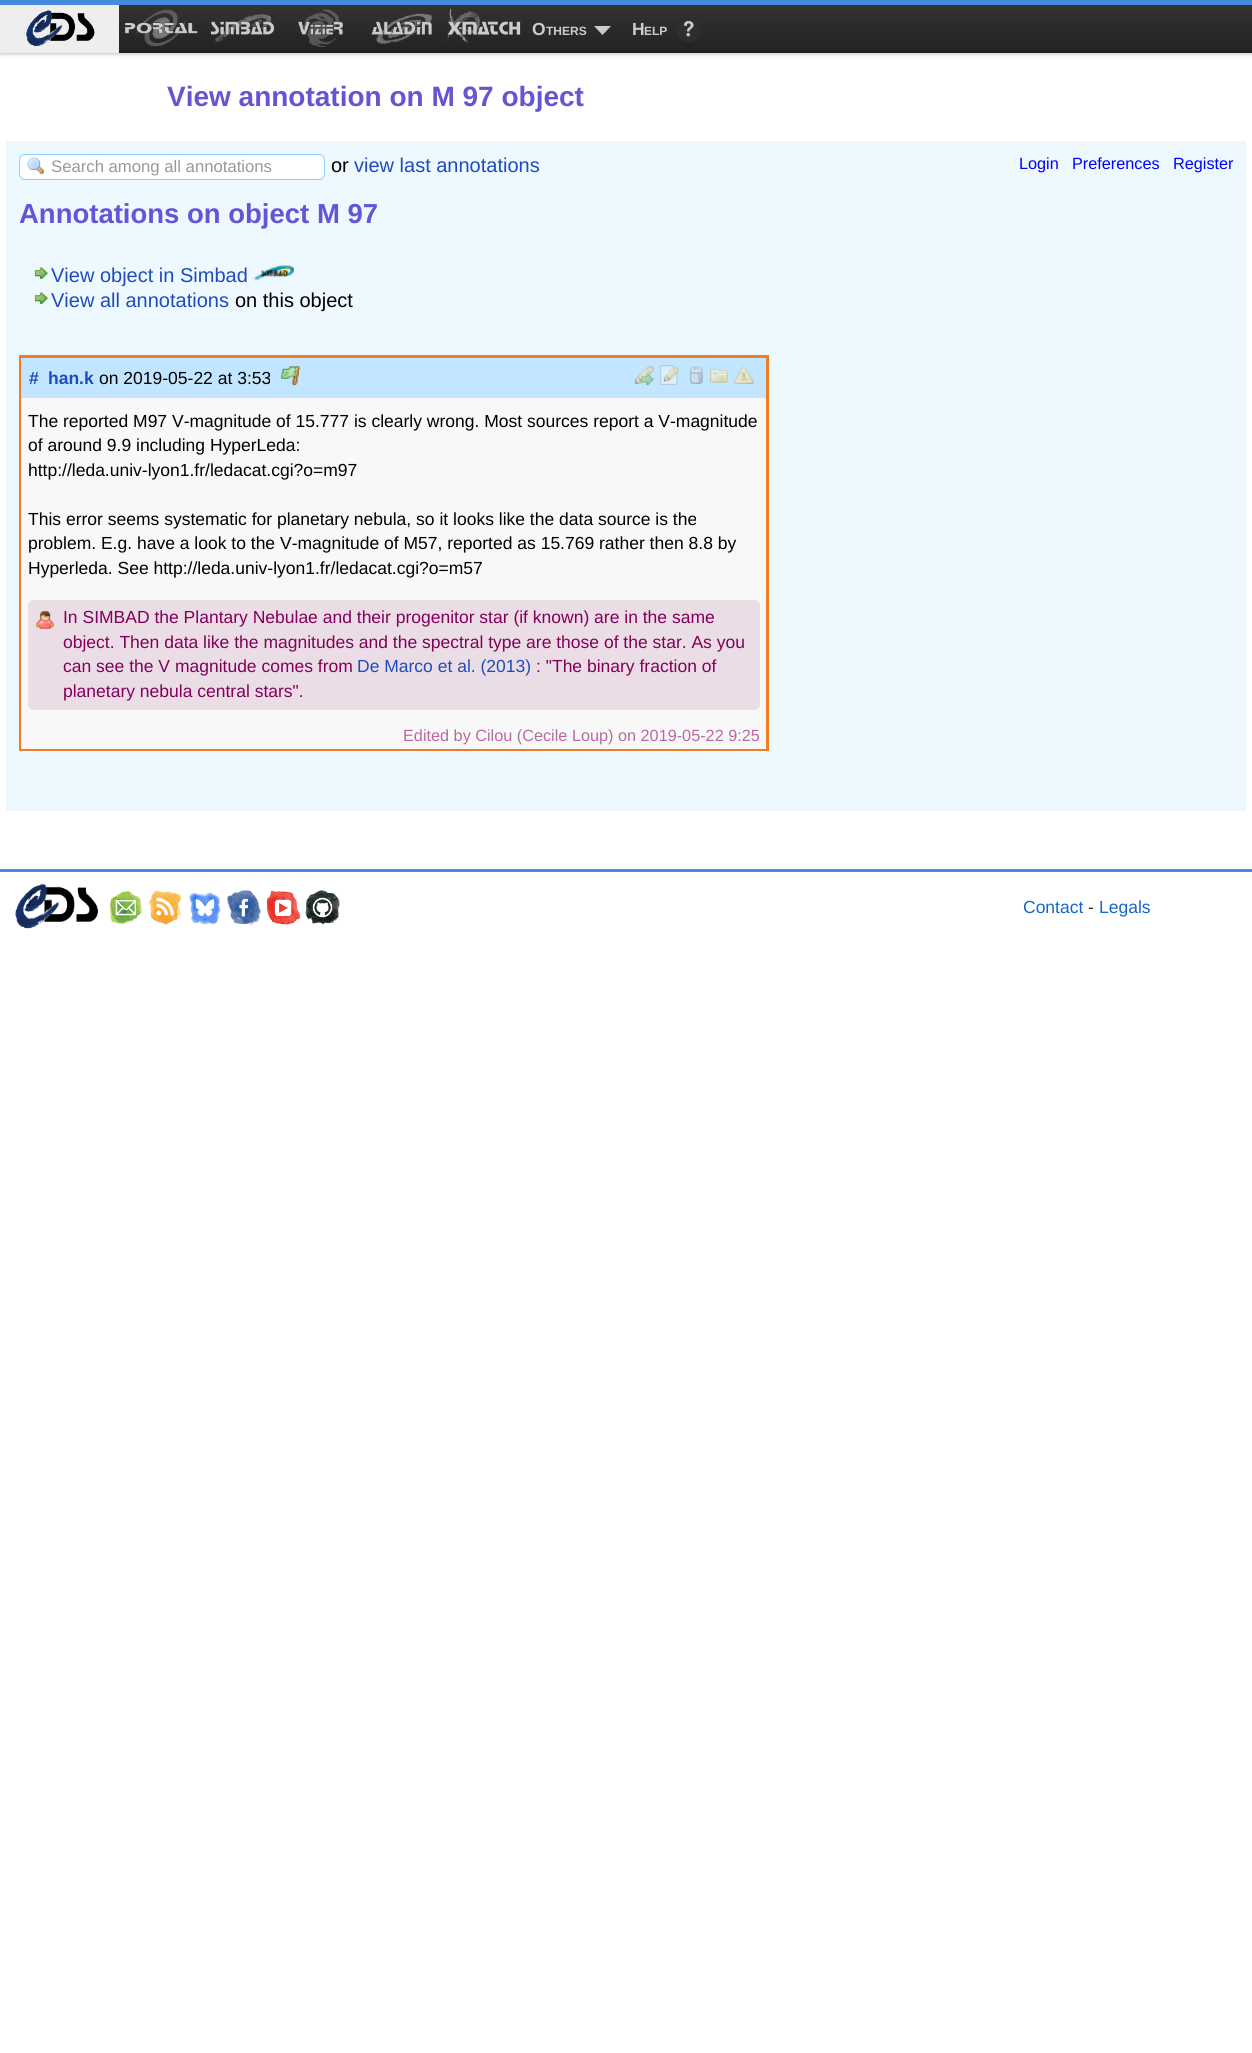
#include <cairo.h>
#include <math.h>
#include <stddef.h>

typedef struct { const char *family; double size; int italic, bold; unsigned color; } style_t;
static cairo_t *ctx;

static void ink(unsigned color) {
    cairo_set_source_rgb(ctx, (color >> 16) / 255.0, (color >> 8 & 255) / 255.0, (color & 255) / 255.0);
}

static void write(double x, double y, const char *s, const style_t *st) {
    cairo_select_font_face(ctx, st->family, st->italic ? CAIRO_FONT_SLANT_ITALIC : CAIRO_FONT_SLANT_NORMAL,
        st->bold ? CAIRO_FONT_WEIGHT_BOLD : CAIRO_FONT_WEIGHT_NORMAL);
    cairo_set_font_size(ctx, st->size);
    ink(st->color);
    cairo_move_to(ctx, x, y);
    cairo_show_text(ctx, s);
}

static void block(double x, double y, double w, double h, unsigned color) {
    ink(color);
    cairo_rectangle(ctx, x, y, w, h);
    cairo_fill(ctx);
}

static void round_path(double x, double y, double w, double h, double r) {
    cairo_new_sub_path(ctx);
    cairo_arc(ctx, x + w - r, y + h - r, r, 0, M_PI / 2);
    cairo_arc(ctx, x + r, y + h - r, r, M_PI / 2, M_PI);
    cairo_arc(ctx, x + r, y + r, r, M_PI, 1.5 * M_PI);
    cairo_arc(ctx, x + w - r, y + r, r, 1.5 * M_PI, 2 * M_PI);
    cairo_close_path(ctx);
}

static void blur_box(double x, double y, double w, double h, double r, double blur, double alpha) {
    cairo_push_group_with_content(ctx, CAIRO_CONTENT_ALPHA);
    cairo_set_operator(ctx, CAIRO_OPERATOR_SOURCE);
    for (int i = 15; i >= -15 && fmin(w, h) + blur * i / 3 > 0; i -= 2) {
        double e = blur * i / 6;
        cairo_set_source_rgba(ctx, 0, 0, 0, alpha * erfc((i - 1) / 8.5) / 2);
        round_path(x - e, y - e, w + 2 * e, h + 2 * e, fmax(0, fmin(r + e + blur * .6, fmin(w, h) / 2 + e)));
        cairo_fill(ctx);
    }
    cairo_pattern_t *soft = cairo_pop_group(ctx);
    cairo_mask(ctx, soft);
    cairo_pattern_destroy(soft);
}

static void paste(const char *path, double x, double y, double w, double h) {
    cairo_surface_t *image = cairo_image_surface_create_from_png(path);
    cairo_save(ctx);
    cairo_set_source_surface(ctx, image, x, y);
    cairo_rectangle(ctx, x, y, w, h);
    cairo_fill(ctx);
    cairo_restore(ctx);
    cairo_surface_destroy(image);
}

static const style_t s1 = {"Liberation Sans", 17.5, 0, 1, 0xcccccc};
static const style_t s2 = {"Liberation Sans", 12, 0, 1, 0xcccccc};
static const style_t s3 = {"Liberation Sans", 28, 0, 1, 0x6455d4};
static const style_t s4 = {"Liberation Sans", 16.7, 0, 0, 0x999999};
static const style_t s5 = {"Liberation Sans", 20, 0, 0, 0x000000};
static const style_t s6 = {"Liberation Sans", 20, 0, 0, 0x1f4bbc};
static const style_t s7 = {"Liberation Sans", 16.25, 0, 0, 0x0000ff};
static const style_t s8 = {"Liberation Sans", 27.5, 0, 1, 0x6455d4};
static const style_t s9 = {"Liberation Sans", 17.5, 0, 1, 0x1f4bbc};
static const style_t s10 = {"Liberation Sans", 17.5, 0, 0, 0x000000};
static const style_t s11 = {"Liberation Sans", 17.5, 0, 0, 0x820059};
static const style_t s12 = {"Liberation Sans", 17.5, 0, 0, 0x1f4bbc};
static const style_t s13 = {"Liberation Sans", 16.25, 0, 0, 0xb86a9f};
static const style_t s14 = {"Liberation Sans", 17.5, 0, 0, 0x1367c7};
static const style_t s15 = {"Liberation Sans", 17.5, 0, 0, 0x333333};

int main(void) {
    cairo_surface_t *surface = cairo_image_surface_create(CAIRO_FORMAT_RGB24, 1252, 2053);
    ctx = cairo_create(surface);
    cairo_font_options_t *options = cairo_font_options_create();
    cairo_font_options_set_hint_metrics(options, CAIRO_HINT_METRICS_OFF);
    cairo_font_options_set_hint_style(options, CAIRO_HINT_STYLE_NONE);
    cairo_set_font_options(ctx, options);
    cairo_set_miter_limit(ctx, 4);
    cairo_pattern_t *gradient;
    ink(0xffffff);
    cairo_paint(ctx);
    ink(0x000000);
    blur_box(0, 1, 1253, 53, 0, 2, 0.25);
    gradient = cairo_pattern_create_linear(626, 5, 626, 53);
    cairo_pattern_add_color_stop_rgba(gradient, 0, 0.2, 0.2, 0.2, 1);
    cairo_pattern_add_color_stop_rgba(gradient, 1, 0.133, 0.133, 0.133, 1);
    cairo_set_source(ctx, gradient);
    cairo_pattern_destroy(gradient);
    cairo_rectangle(ctx, 119, 5, 1133, 48);
    cairo_fill(ctx);
    block(119, 51, 1133, 1, 0x202020);
    block(0, 0, 1252, 5, 0x458bdb);
    block(0, 5, 119, 48, 0xeeeeee);
    paste("pic1.png", 26, 10, 69, 37);
    paste("pic2.png", 136, 9, 51, 38);
    paste("pic3.png", 125, 22, 73, 12);
    paste("pic4.png", 213, 13, 59, 31);
    paste("pic5.png", 210, 21, 65, 14);
    paste("pic6.png", 303, 9, 37, 38);
    paste("pic7.png", 298, 21, 45, 14);
    paste("pic8.png", 376, 13, 57, 31);
    paste("pic9.png", 371, 21, 61, 14);
    paste("pic10.png", 447, 8, 33, 35);
    paste("pic11.png", 447, 21, 74, 14);
    write(532, 35, "O", &s1);
    write(546, 35, "THERS", &s2);
    cairo_new_path(ctx);
    cairo_move_to(ctx, 594, 26);
    cairo_line_to(ctx, 611, 26);
    cairo_line_to(ctx, 602.5, 35);
    cairo_close_path(ctx);
    cairo_fill(ctx);
    write(632, 35, "H", &s1);
    write(644, 35, "ELP", &s2);
    paste("pic12.png", 677, 20, 24, 22);
    write(167, 106, "View annotation on M 97 object", &s3);
    block(6, 141, 1240, 670, 0xedf8ff);
    ink(0xffffff);
    round_path(19, 154, 306, 26, 6);
    cairo_fill(ctx);
    paste("pic13.png", 27, 157, 17, 18);
    round_path(19.5, 154.5, 305, 25, 5.5);
    ink(0x8cd0ff);
    cairo_set_line_width(ctx, 1);
    cairo_stroke(ctx);
    write(51, 172, "Search among all annotations", &s4);
    write(331, 172, "or", &s5);
    write(354, 172, "view last annotations", &s6);
    write(1019, 169, "Login", &s7);
    write(1072, 169, "Preferences", &s7);
    write(1173, 169, "Register", &s7);
    write(19, 223, "Annotations on object M 97", &s8);
    paste("pic14.png", 34, 267, 14, 12);
    write(51, 282, "View object in Simbad", &s6);
    paste("pic15.png", 253, 265, 41, 17);
    paste("pic16.png", 34, 292, 14, 12);
    write(51, 307, "View all annotations", &s6);
    write(235, 307, "on this object", &s5);
    cairo_rectangle(ctx, 20.5, 356.5, 747, 393);
    ink(0xf17c27);
    cairo_set_line_width(ctx, 3);
    cairo_stroke(ctx);
    block(21, 358, 745, 40, 0xc2e6ff);
    write(29, 384, "#", &s9);
    write(48, 384, "han.k", &s9);
    write(99, 384, "on 2019-05-22 at 3:53", &s10);
    paste("pic17.png", 281, 366, 20, 19);
    paste("pic18.png", 634, 366, 20, 19);
    paste("pic19.png", 660, 365, 19, 20);
    paste("pic20.png", 689, 366, 14, 18);
    paste("pic21.png", 709, 368, 19, 15);
    paste("pic22.png", 733, 366, 21, 18);
    block(21, 398, 745, 351, 0xf8f8f8);
    write(28, 427, "The reported M97 V-magnitude of 15.777 is clearly wrong. Most sources report a V-magnitude", &s10);
    write(28, 451, "of around 9.9 including HyperLeda:", &s10);
    write(28, 476, "http://leda.univ-lyon1.fr/ledacat.cgi?o=m97", &s10);
    write(28, 525, "This error seems systematic for planetary nebula, so it looks like the data source is the", &s10);
    write(28, 549, "problem. E.g. have a look to the V-magnitude of M57, reported as 15.769 rather then 8.8 by", &s10);
    write(28, 574, "Hyperleda. See http://leda.univ-lyon1.fr/ledacat.cgi?o=m57", &s10);
    ink(0xebdde6);
    round_path(28, 600, 732, 110, 6);
    cairo_fill(ctx);
    paste("pic23.png", 36, 611, 18, 18);
    write(63, 623, "In SIMBAD the Plantary Nebulae and their progenitor star (if known) are in the same", &s11);
    write(63, 648, "object. Then data like the magnitudes and the spectral type are those of the star. As you", &s11);
    write(63, 672, "can see the V magnitude comes from", &s11);
    write(357, 672, "De Marco et al. (2013)", &s12);
    write(536, 672, ": \"The binary fraction of", &s11);
    write(63, 697, "planetary nebula central stars\".", &s11);
    write(403, 741, "Edited by Cilou (Cecile Loup) on 2019-05-22 9:25", &s13);
    block(0, 869, 1252, 3, 0x458bdb);
    paste("pic24.png", 15, 883, 83, 46);
    paste("pic25.png", 110, 891, 33, 33);
    paste("pic26.png", 148, 890, 34, 35);
    paste("pic27.png", 189, 892, 32, 33);
    paste("pic28.png", 227, 890, 35, 35);
    paste("pic29.png", 266, 890, 35, 35);
    paste("pic30.png", 305, 890, 35, 35);
    write(1023, 913, "Contact", &s14);
    write(1088, 913, "-", &s15);
    write(1099, 913, "Legals", &s14);
    cairo_surface_write_to_png(surface, "screenshot.png");
    cairo_font_options_destroy(options);
    cairo_destroy(ctx);
    cairo_surface_destroy(surface);
    return 0;
}
